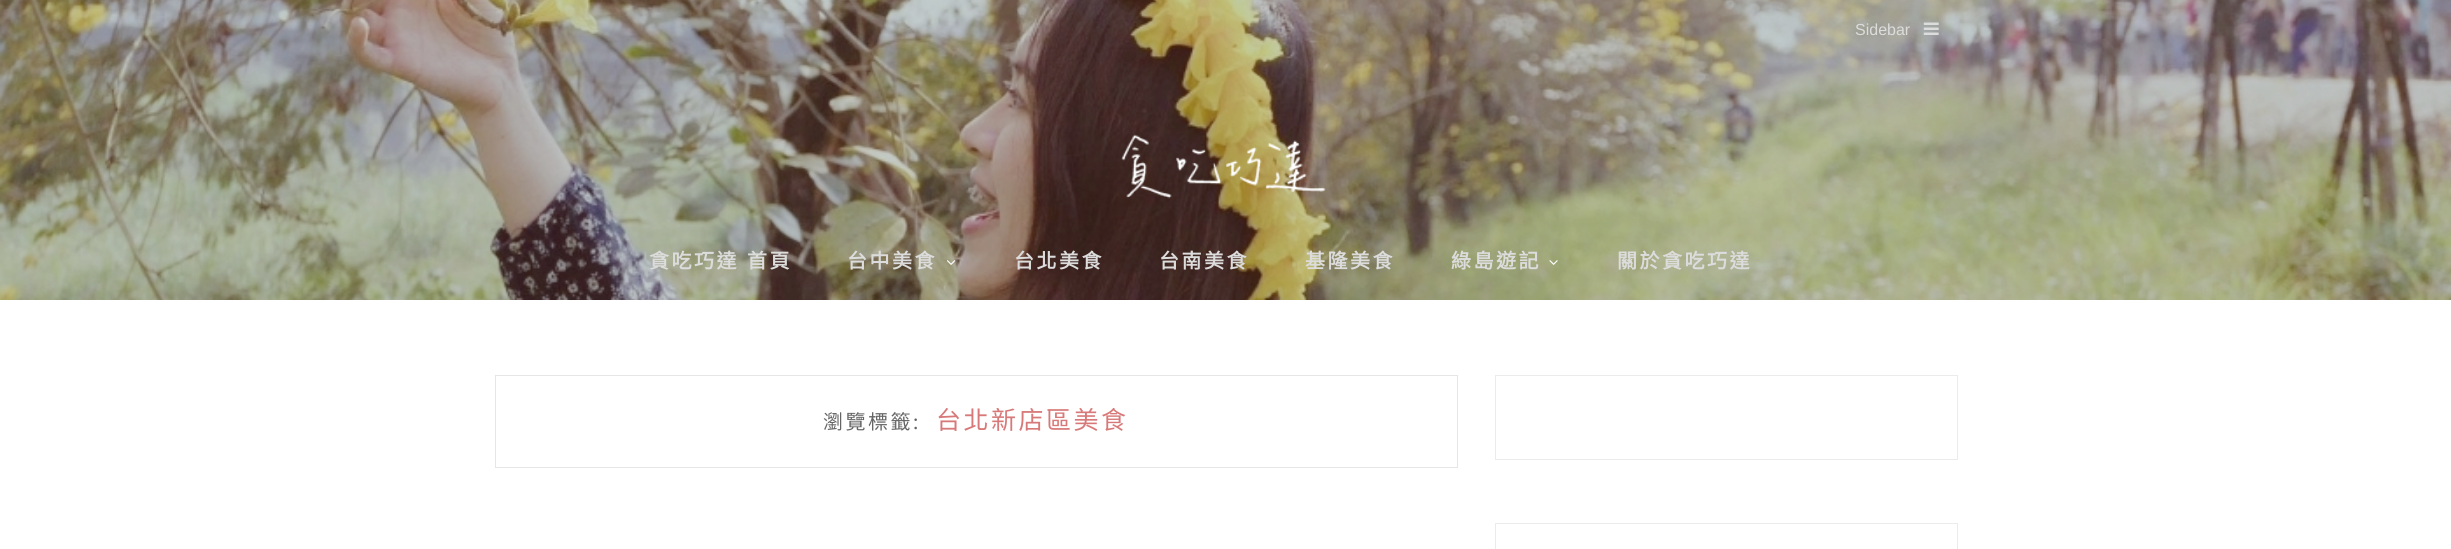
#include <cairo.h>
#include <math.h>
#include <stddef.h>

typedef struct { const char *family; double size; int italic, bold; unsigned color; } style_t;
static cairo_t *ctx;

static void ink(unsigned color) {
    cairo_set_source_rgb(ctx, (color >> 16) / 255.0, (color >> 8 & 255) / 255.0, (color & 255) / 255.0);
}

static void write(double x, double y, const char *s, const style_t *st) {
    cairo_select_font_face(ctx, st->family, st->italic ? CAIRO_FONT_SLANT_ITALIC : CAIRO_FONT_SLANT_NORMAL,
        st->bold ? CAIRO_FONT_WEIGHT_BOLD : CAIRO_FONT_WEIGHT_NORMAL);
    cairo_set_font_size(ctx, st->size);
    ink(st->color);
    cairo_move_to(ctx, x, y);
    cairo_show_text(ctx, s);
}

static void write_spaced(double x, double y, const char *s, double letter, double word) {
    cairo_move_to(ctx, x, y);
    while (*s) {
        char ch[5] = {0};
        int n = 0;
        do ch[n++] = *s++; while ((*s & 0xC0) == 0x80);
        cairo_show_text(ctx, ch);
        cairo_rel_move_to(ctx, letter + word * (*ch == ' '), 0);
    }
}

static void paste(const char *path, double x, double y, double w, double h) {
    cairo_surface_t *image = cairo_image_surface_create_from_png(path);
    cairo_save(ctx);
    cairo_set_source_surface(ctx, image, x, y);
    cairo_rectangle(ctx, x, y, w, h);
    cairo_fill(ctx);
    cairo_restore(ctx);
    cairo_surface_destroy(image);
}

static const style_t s1 = {"Liberation Sans", 16, 0, 0, 0xdcdcdc};

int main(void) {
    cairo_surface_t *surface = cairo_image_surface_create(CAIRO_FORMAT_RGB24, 2451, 549);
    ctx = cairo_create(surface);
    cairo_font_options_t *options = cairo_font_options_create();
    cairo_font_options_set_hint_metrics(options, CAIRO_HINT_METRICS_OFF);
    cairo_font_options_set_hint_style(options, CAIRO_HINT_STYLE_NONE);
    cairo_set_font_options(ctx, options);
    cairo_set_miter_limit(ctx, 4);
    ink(0xffffff);
    cairo_paint(ctx);
    paste("pic1.png", 0, 0, 2451, 300);
    write(1855, 35, "Sidebar", &s1);
    paste("pic2.png", 1923, 22, 16, 13);
    paste("pic3.png", 1121, 134, 205, 65);
    cairo_select_font_face(ctx, "Noto Sans CJK TC", CAIRO_FONT_SLANT_NORMAL, CAIRO_FONT_WEIGHT_BOLD);
    cairo_set_font_size(ctx, 20);
    write_spaced(649, 268, "貪吃巧達 首頁", 2.5, 1);
    write_spaced(847, 268, "台中美食", 2.5, 0);
    paste("pic4.png", 947, 260, 9, 5);
    write_spaced(1014, 268, "台北美食", 2.5, 0);
    write_spaced(1159, 268, "台南美食", 2.5, 0);
    write_spaced(1305, 268, "基隆美食", 2.5, 0);
    write_spaced(1451, 268, "綠島遊記", 2.5, 0);
    paste("pic5.png", 1549, 260, 9, 5);
    write_spaced(1617, 268, "關於貪吃巧達", 2.5, 0);
    cairo_rectangle(ctx, 495.5, 375.5, 962, 92);
    ink(0xe6e6e6);
    cairo_set_line_width(ctx, 1);
    cairo_stroke(ctx);
    cairo_select_font_face(ctx, "Noto Sans CJK TC", CAIRO_FONT_SLANT_NORMAL, CAIRO_FONT_WEIGHT_NORMAL);
    ink(0x656565);
    write_spaced(823, 429, "瀏覽標籤", 2.5, 0);
    cairo_select_font_face(ctx, "Playfair Display", CAIRO_FONT_SLANT_NORMAL, CAIRO_FONT_WEIGHT_NORMAL);
    write_spaced(913, 429, ":", 2.5, 0);
    cairo_select_font_face(ctx, "Noto Sans CJK TC", CAIRO_FONT_SLANT_NORMAL, CAIRO_FONT_WEIGHT_NORMAL);
    cairo_set_font_size(ctx, 25);
    ink(0xd87979);
    write_spaced(936, 429, "台北新店區美食", 2.5, 0);
    cairo_rectangle(ctx, 1495.5, 375.5, 462, 84);
    ink(0xebebeb);
    cairo_stroke(ctx);
    cairo_rectangle(ctx, 1495.5, 523.5, 462, 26);
    cairo_stroke(ctx);
    cairo_surface_write_to_png(surface, "screenshot.png");
    cairo_font_options_destroy(options);
    cairo_destroy(ctx);
    cairo_surface_destroy(surface);
    return 0;
}
